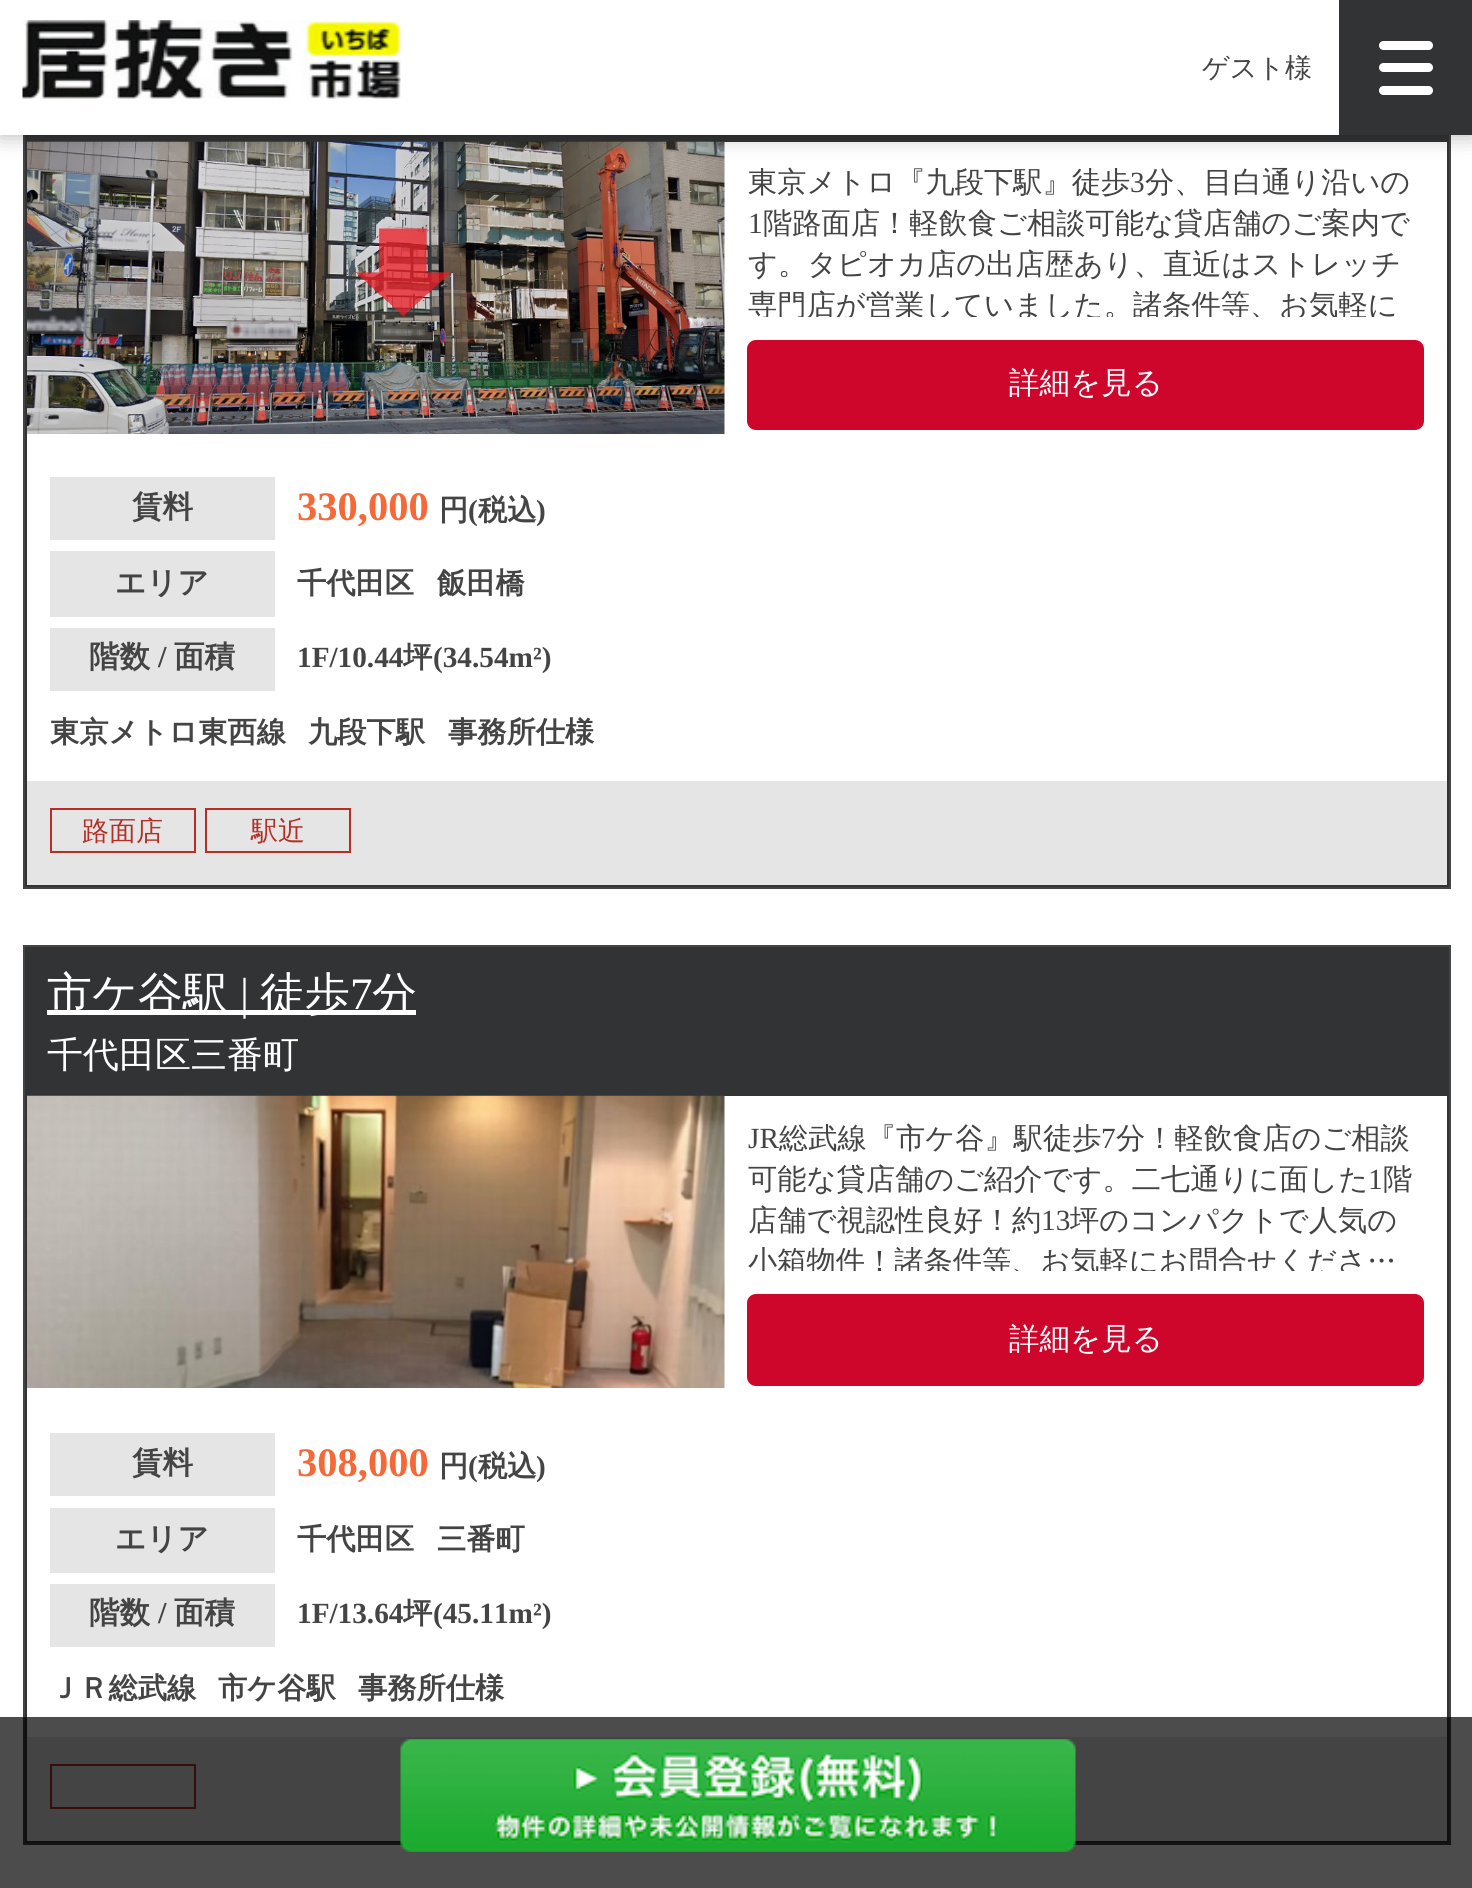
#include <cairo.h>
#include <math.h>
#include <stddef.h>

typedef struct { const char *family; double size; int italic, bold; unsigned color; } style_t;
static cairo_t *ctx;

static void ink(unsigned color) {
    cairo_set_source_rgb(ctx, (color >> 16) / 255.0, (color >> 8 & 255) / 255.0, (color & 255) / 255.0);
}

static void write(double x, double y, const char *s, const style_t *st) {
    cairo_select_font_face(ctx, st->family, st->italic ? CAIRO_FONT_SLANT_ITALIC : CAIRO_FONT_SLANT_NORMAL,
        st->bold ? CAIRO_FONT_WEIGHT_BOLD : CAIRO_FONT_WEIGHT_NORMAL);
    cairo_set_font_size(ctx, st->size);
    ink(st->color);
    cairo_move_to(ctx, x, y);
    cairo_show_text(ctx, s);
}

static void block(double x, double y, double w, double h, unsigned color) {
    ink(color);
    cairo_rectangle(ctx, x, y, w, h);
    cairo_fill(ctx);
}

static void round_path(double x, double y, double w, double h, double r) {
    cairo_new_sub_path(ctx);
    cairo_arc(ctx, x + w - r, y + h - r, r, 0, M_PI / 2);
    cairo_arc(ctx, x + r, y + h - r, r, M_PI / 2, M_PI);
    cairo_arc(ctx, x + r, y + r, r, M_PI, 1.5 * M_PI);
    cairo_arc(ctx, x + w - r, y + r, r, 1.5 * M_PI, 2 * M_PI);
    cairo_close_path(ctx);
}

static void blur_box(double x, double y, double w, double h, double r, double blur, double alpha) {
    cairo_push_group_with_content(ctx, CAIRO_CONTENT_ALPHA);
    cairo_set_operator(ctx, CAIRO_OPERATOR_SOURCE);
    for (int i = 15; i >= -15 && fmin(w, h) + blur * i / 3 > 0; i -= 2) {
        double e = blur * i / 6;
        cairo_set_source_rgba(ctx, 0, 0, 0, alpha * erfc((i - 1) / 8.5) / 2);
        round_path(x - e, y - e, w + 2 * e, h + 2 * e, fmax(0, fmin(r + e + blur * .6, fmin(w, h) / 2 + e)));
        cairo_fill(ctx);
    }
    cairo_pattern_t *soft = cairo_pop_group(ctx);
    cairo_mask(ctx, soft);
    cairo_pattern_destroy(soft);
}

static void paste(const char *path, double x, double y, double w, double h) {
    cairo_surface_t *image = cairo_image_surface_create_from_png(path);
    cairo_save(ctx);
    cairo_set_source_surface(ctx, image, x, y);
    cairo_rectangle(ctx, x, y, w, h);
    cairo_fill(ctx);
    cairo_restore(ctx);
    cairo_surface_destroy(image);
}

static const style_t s1 = {"WenQuanYi Zen Hei Medium", 27, 0, 0, 0x444444};
static const style_t s2 = {"WenQuanYi Zen Hei Medium", 29.25, 0, 0, 0x444444};
static const style_t s3 = {"Liberation Serif", 29.25, 0, 0, 0x444444};
static const style_t s4 = {"WenQuanYi Zen Hei Medium", 30.5, 0, 0, 0xffffff};
static const style_t s5 = {"WenQuanYi Zen Hei", 30.5, 0, 1, 0x444444};
static const style_t s6 = {"Liberation Serif", 40.5, 0, 1, 0xf46937};
static const style_t s7 = {"WenQuanYi Zen Hei", 29.25, 0, 1, 0x444444};
static const style_t s8 = {"Liberation Serif", 29.25, 0, 1, 0x444444};
static const style_t s9 = {"Liberation Serif", 30.5, 0, 1, 0x444444};
static const style_t s10 = {"WenQuanYi Zen Hei Medium", 27, 0, 0, 0xb52f25};
static const style_t s11 = {"WenQuanYi Zen Hei Medium", 45, 0, 0, 0xffffff};
static const style_t s12 = {"Liberation Serif", 45, 0, 0, 0xffffff};
static const style_t s13 = {"WenQuanYi Zen Hei Medium", 36, 0, 0, 0xffffff};

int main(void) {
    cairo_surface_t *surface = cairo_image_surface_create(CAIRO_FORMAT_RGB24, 1472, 1888);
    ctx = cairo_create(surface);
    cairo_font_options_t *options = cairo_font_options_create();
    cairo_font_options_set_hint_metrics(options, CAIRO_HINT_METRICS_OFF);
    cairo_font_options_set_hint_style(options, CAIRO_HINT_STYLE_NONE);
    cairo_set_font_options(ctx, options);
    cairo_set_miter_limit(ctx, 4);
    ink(0xffffff);
    cairo_paint(ctx);
    block(27, 884, 1420, 1, 0xe4e6e7);
    cairo_rectangle(ctx, 24, -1, 1426, 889);
    ink(0x444444);
    cairo_stroke(ctx);
    block(25, 135, 1424, 5, 0x323334);
    cairo_rectangle(ctx, 26, 141, 1422, 745);
    cairo_stroke(ctx);
    paste("pic2.png", 27, 141, 698, 293);
    ink(0x000000);
    blur_box(0, 0, 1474, 135, 0, 11, 0.3);
    block(0, 0, 1339, 135, 0xffffff);
    paste("pic1.png", 22, 20, 379, 79);
    write(1202, 77, "ゲスト様", &s1);
    block(1339, 0, 133, 135, 0x323334);
    ink(0xffffff);
    round_path(1379, 41, 54, 9, 4.5);
    cairo_fill(ctx);
    round_path(1379, 63, 54, 9, 4.5);
    cairo_fill(ctx);
    round_path(1379, 86, 54, 9, 4.5);
    cairo_fill(ctx);
    write(748, 192, "東京メトロ『九段下駅』徒歩", &s2);
    write(1130, 192, "3", &s3);
    write(1145, 192, "分、目白通り沿いの", &s2);
    write(748, 233, "1", &s3);
    write(763, 233, "階路面店！軽飲食ご相談可能な貸店舗のご案内で", &s2);
    write(748, 274, "す。タピオカ店の出店歴あり、直近はストレッチ", &s2);
    cairo_save(ctx);
    cairo_rectangle(ctx, 747, 164, 677, 153);
    cairo_clip(ctx);
    write(748, 315, "専門店が営業していました。諸条件等、お気軽に", &s2);
    cairo_restore(ctx);
    ink(0xce062b);
    round_path(747, 340, 677, 90, 9);
    cairo_fill(ctx);
    write(1009, 393, "詳細を見る", &s4);
    block(50, 477, 225, 63, 0xe5e5e5);
    write(132, 517, "賃料", &s5);
    write(297, 520, "330,000", &s6);
    write(439, 520, "円", &s7);
    write(468, 520, "(", &s8);
    write(478, 520, "税込", &s7);
    write(536, 520, ")", &s8);
    block(50, 551, 225, 66, 0xe5e5e5);
    write(115, 593, "エリア", &s5);
    write(297, 593, "千代田区", &s7);
    write(437, 593, "飯田橋", &s7);
    block(50, 628, 225, 63, 0xe5e5e5);
    write(89, 667, "階数", &s5);
    write(158, 667, "/", &s9);
    write(174, 667, "面積", &s5);
    write(297, 667, "1F/10.44", &s8);
    write(403, 667, "坪", &s7);
    write(433, 667, "(34.54m²)", &s8);
    write(50, 742, "東京メトロ東西線", &s7);
    write(308, 742, "九段下駅", &s7);
    write(448, 742, "事務所仕様", &s7);
    block(27, 781, 1420, 103, 0xe5e5e5);
    cairo_rectangle(ctx, 51, 809, 144, 43);
    ink(0xb52f25);
    cairo_stroke(ctx);
    write(82, 840, "路面店", &s10);
    cairo_rectangle(ctx, 206, 809, 144, 43);
    cairo_stroke(ctx);
    write(251, 840, "駅近", &s10);
    cairo_rectangle(ctx, 24, 946, 1426, 898);
    ink(0x444444);
    cairo_stroke(ctx);
    block(25, 947, 1424, 147, 0x323334);
    block(47, 1010, 369, 5, 0xffffff);
    write(47, 1009, "市ケ谷駅", &s11);
    write(240, 1009, "|", &s12);
    write(260, 1009, "徒歩", &s11);
    write(350, 1009, "7", &s12);
    write(372, 1009, "分", &s11);
    write(47, 1067, "千代田区三番町", &s13);
    cairo_rectangle(ctx, 26, 1095, 1422, 747);
    ink(0x323334);
    cairo_stroke(ctx);
    paste("pic3.png", 27, 1095, 698, 293);
    write(748, 1148, "JR", &s3);
    write(779, 1148, "総武線『市ケ谷』駅徒歩", &s2);
    write(1101, 1148, "7", &s3);
    write(1116, 1148, "分！軽飲食店のご相談", &s2);
    write(748, 1189, "可能な貸店舗のご紹介です。二七通りに面した", &s2);
    write(1368, 1189, "1", &s3);
    write(1383, 1189, "階", &s2);
    write(748, 1230, "店舗で視認性良好！約", &s2);
    write(1041, 1230, "13", &s3);
    write(1070, 1230, "坪のコンパクトで人気の", &s2);
    cairo_save(ctx);
    cairo_rectangle(ctx, 747, 1118, 677, 153);
    cairo_clip(ctx);
    write(748, 1271, "小箱物件！諸条件等、お気軽にお問合せくださ…", &s2);
    cairo_restore(ctx);
    ink(0xce062b);
    round_path(747, 1294, 677, 92, 9);
    cairo_fill(ctx);
    write(1009, 1349, "詳細を見る", &s4);
    block(50, 1433, 225, 63, 0xe5e5e5);
    write(132, 1473, "賃料", &s5);
    write(297, 1476, "308,000", &s6);
    write(439, 1476, "円", &s7);
    write(468, 1476, "(", &s8);
    write(478, 1476, "税込", &s7);
    write(536, 1476, ")", &s8);
    block(50, 1508, 225, 65, 0xe5e5e5);
    write(115, 1549, "エリア", &s5);
    write(297, 1549, "千代田区", &s7);
    write(437, 1549, "三番町", &s7);
    block(50, 1584, 225, 63, 0xe5e5e5);
    write(89, 1623, "階数", &s5);
    write(158, 1623, "/", &s9);
    write(174, 1623, "面積", &s5);
    write(297, 1623, "1F/13.64", &s8);
    write(403, 1623, "坪", &s7);
    write(433, 1623, "(45.11m²)", &s8);
    write(50, 1698, "ＪＲ総武線", &s7);
    write(218, 1698, "市ケ谷駅", &s7);
    write(358, 1698, "事務所仕様", &s7);
    block(27, 1737, 1420, 104, 0xe5e5e5);
    cairo_rectangle(ctx, 51, 1765, 144, 43);
    ink(0xb52f25);
    cairo_stroke(ctx);
    cairo_set_source_rgba(ctx, 0, 0, 0, 0.7);
    cairo_rectangle(ctx, 0, 1717, 1472, 171);
    cairo_fill(ctx);
    paste("pic4.png", 400, 1739, 676, 113);
    cairo_surface_write_to_png(surface, "screenshot.png");
    cairo_font_options_destroy(options);
    cairo_destroy(ctx);
    cairo_surface_destroy(surface);
    return 0;
}
